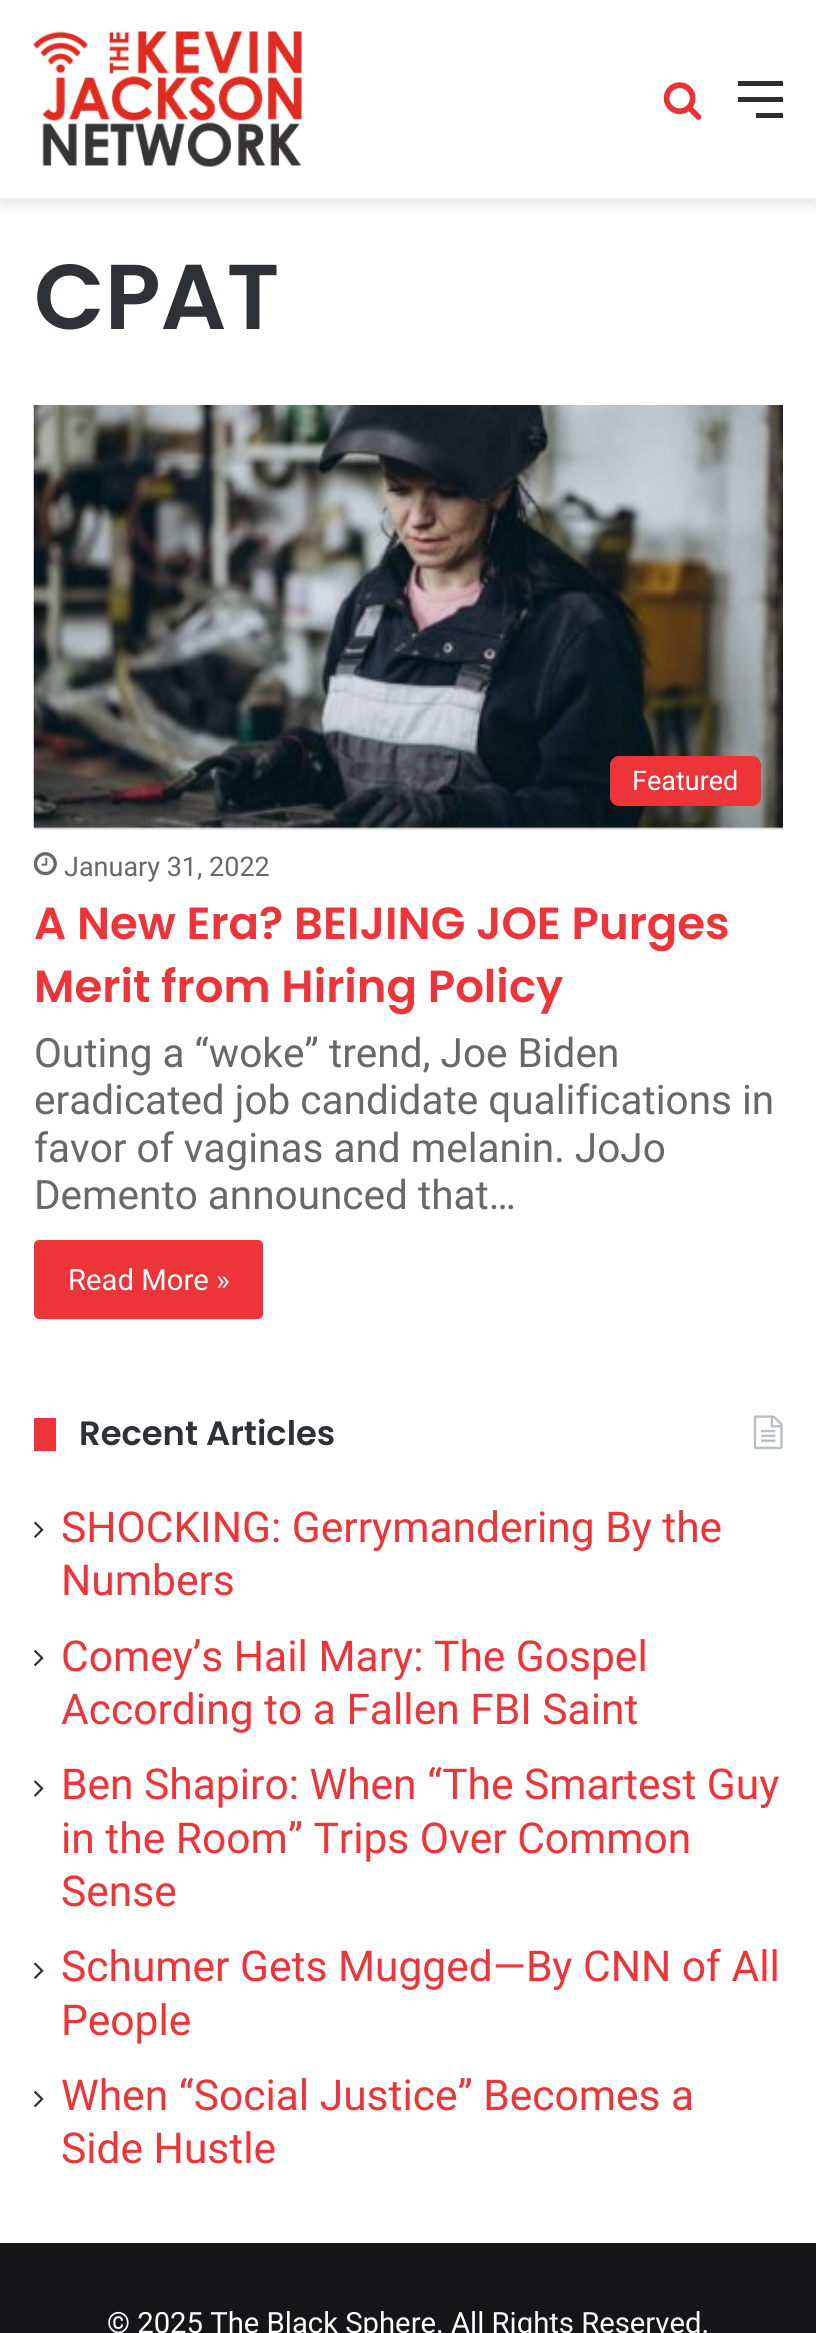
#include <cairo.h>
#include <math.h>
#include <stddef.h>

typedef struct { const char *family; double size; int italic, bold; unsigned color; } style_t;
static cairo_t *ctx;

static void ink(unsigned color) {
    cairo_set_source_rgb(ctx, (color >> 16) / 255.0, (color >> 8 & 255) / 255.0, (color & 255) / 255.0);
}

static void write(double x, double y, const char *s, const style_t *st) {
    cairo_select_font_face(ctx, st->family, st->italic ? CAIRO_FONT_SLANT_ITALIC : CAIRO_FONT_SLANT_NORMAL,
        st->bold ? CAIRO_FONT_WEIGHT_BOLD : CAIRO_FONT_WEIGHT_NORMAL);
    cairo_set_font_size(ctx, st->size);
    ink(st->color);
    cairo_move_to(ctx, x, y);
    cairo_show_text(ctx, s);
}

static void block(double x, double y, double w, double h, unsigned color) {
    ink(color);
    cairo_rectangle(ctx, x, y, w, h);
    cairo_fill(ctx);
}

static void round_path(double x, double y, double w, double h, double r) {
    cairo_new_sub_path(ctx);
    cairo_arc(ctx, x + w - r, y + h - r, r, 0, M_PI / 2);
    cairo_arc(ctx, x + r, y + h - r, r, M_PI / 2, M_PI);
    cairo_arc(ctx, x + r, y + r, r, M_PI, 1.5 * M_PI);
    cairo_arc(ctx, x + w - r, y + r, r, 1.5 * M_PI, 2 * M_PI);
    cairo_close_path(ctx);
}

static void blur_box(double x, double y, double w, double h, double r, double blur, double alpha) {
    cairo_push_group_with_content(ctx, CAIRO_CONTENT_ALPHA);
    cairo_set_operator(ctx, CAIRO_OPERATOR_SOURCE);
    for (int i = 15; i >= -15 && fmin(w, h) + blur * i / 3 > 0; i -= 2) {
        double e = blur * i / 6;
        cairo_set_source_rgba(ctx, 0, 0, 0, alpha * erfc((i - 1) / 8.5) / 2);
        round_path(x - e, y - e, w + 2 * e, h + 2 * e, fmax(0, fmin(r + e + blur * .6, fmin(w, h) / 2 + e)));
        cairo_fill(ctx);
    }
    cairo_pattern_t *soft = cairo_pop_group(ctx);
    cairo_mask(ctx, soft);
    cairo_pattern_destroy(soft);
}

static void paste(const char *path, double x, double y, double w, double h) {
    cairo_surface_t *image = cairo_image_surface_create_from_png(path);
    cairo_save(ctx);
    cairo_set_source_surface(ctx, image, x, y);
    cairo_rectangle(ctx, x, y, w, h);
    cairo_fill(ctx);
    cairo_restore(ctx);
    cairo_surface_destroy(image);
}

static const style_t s1 = {"Poppins SemiBold", 92, 0, 0, 0x2e3136};
static const style_t s2 = {"Roboto", 27, 0, 0, 0xffffff};
static const style_t s3 = {"Roboto", 27, 0, 0, 0x686868};
static const style_t s4 = {"Poppins SemiBold", 45, 0, 0, 0xed3439};
static const style_t s5 = {"Roboto", 40.5, 0, 0, 0x686868};
static const style_t s6 = {"Roboto", 29.25, 0, 0, 0xffffff};
static const style_t s7 = {"Poppins SemiBold", 33.75, 0, 0, 0x2e3136};
static const style_t s8 = {"Roboto", 42.5, 0, 0, 0xed3439};

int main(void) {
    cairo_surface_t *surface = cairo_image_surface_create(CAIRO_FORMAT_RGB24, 816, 2333);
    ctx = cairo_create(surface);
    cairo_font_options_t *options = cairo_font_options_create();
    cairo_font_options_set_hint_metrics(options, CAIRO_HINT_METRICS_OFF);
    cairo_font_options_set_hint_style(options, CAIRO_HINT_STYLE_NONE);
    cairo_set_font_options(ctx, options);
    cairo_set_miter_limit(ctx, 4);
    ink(0xffffff);
    cairo_paint(ctx);
    cairo_save(ctx);
    cairo_rectangle(ctx, 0, 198, 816, 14);
    cairo_clip(ctx);
    ink(0x000000);
    blur_box(0, 7, 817, 198, 0, 8, 0.1);
    cairo_restore(ctx);
    paste("pic1.png", 33, 31, 269, 136);
    paste("pic2.png", 663, 82, 39, 38);
    block(738, 97, 45, 5, 0x2c2f34);
    block(738, 81, 45, 5, 0x2c2f34);
    block(756, 113, 27, 5, 0x2c2f34);
    write(34, 329, "CPAT", &s1);
    paste("pic3.png", 33, 405, 750, 425);
    ink(0xed3439);
    round_path(610, 756, 151, 50, 9);
    cairo_fill(ctx);
    write(632, 790, "Featured", &s2);
    paste("pic4.png", 34, 852, 23, 24);
    write(64, 876, "January 31, 2022", &s3);
    write(34, 939, "A New Era? BEIJING JOE Purges", &s4);
    write(34, 1002, "Merit from Hiring Policy", &s4);
    write(34, 1067, "Outing a “woke” trend, Joe Biden", &s5);
    write(34, 1114, "eradicated job candidate qualifications in", &s5);
    write(34, 1162, "favor of vaginas and melanin. JoJo", &s5);
    write(34, 1209, "Demento announced that…", &s5);
    ink(0xed3439);
    round_path(34, 1240, 229, 79, 5);
    cairo_fill(ctx);
    write(68, 1290, "Read More »", &s6);
    block(34, 1418, 22, 33, 0xed3439);
    write(79, 1445, "Recent Articles", &s7);
    paste("pic5.png", 753, 1415, 30, 35);
    paste("pic6.png", 34, 1521, 10, 17);
    write(61, 1542, "SHOCKING: Gerrymandering By the", &s8);
    write(61, 1595, "Numbers", &s8);
    paste("pic7.png", 34, 1649, 10, 18);
    write(61, 1671, "Comey’s Hail Mary: The Gospel", &s8);
    write(61, 1724, "According to a Fallen FBI Saint", &s8);
    paste("pic8.png", 34, 1780, 10, 17);
    write(61, 1799, "Ben Shapiro: When “The Smartest Guy", &s8);
    write(61, 1853, "in the Room” Trips Over Common", &s8);
    write(61, 1906, "Sense", &s8);
    paste("pic6.png", 34, 1962, 10, 17);
    write(61, 1981, "Schumer Gets Mugged—By CNN of All", &s8);
    write(61, 2035, "People", &s8);
    paste("pic7.png", 34, 2090, 10, 18);
    write(61, 2110, "When “Social Justice” Becomes a", &s8);
    write(61, 2163, "Side Hustle", &s8);
    block(0, 2243, 816, 90, 0x161619);
    write(107, 2333, "© 2025 The Black Sphere. All Rights Reserved.", &s6);
    cairo_surface_write_to_png(surface, "screenshot.png");
    cairo_font_options_destroy(options);
    cairo_destroy(ctx);
    cairo_surface_destroy(surface);
    return 0;
}
